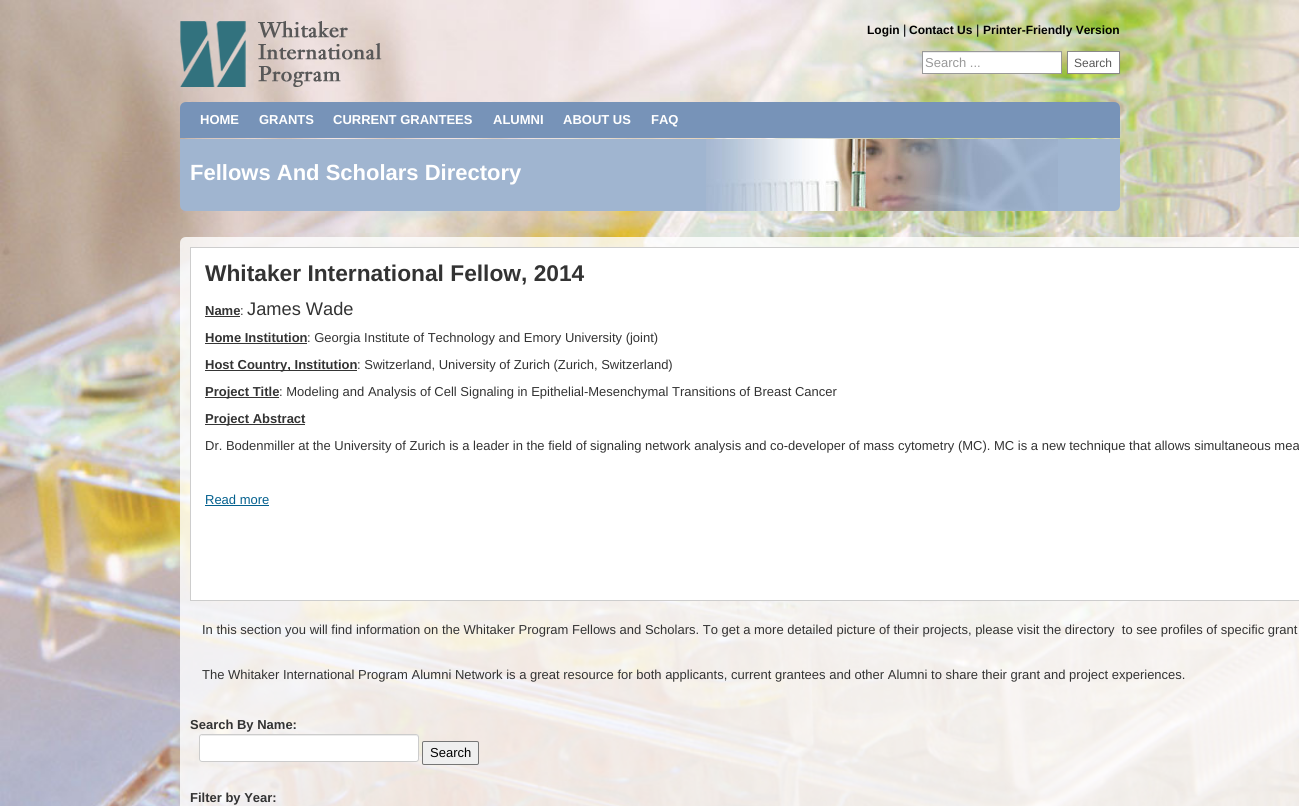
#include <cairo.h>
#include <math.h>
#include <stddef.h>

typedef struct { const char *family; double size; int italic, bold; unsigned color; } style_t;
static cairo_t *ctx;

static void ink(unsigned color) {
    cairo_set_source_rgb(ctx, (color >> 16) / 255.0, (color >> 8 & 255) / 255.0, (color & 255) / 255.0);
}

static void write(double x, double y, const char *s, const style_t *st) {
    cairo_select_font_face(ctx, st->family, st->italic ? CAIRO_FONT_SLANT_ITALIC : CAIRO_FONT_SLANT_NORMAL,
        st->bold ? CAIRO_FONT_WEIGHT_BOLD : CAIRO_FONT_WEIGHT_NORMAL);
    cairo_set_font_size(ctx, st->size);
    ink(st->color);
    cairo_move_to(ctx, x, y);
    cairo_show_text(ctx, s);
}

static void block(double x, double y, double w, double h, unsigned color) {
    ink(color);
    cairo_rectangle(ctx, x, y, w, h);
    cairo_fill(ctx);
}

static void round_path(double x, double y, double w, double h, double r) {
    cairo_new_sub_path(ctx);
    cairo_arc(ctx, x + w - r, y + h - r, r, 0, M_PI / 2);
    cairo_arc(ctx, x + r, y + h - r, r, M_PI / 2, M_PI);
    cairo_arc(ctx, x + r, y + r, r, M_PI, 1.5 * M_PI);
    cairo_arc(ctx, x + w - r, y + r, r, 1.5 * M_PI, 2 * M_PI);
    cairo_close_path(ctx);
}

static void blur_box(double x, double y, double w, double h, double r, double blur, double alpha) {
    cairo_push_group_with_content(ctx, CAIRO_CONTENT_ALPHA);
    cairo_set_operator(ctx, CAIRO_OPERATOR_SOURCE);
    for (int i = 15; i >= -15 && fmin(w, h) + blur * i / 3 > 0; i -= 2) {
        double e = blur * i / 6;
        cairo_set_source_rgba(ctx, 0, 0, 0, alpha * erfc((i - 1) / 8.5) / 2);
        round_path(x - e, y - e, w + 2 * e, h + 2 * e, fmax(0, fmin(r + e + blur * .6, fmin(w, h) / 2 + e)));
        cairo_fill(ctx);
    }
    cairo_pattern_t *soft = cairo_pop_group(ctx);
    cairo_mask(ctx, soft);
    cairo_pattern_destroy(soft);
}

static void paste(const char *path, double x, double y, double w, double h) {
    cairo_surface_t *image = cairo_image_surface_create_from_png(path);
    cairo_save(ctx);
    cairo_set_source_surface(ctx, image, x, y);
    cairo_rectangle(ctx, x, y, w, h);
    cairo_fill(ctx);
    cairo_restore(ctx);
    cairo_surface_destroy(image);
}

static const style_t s1 = {"Liberation Sans", 12, 0, 1, 0x000000};
static const style_t s2 = {"Liberation Sans", 13, 0, 0, 0x000000};
static const style_t s3 = {"Liberation Sans", 13, 0, 0, 0x999999};
static const style_t s4 = {"Liberation Sans", 12, 0, 0, 0x585858};
static const style_t s5 = {"Liberation Sans", 13, 0, 1, 0xffffff};
static const style_t s6 = {"Liberation Sans", 22, 0, 1, 0xffffff};
static const style_t s7 = {"Liberation Sans", 22.75, 0, 1, 0x333333};
static const style_t s8 = {"Liberation Sans", 13, 0, 1, 0x333333};
static const style_t s9 = {"Liberation Sans", 13, 0, 0, 0x333333};
static const style_t s10 = {"Liberation Sans", 18.25, 0, 0, 0x333333};
static const style_t s11 = {"Liberation Sans", 13, 0, 0, 0x03608e};

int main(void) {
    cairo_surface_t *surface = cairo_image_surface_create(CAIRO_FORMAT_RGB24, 1299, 806);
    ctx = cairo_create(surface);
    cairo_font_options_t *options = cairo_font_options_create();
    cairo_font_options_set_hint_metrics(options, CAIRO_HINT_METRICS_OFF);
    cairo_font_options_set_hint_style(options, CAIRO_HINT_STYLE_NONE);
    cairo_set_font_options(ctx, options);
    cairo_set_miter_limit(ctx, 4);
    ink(0xffffff);
    cairo_paint(ctx);
    paste("pic1.png", 0, 0, 1299, 806);
    paste("pic2.png", 180, 21, 202, 66);
    write(867, 34, "Login", &s1);
    write(903, 34, "|", &s2);
    write(909, 34, "Contact Us", &s1);
    write(976, 34, "|", &s2);
    write(983, 34, "Printer-Friendly Version", &s1);
    block(923, 53, 138, 20, 0xffffff);
    block(923, 52, 138, 1, 0xececec);
    cairo_rectangle(ctx, 922.5, 51.5, 139, 22);
    ink(0x999999);
    cairo_set_line_width(ctx, 1);
    cairo_stroke(ctx);
    write(925, 67, "Search ...", &s3);
    ink(0x000000);
    blur_box(1067, 52, 53, 23, 0, 1, 0.05);
    ink(0xffffff);
    cairo_rectangle(ctx, 1067.5, 51.5, 52, 22);
    cairo_fill_preserve(ctx);
    ink(0x8a8888);
    cairo_stroke(ctx);
    write(1074, 67, "Search", &s4);
    ink(0x7793b8);
    cairo_new_path(ctx);
    cairo_move_to(ctx, 186, 102);
    cairo_line_to(ctx, 1114, 102);
    cairo_curve_to(ctx, 1117.5, 102, 1120, 104.5, 1120, 108);
    cairo_line_to(ctx, 1120, 138);
    cairo_line_to(ctx, 180, 138);
    cairo_line_to(ctx, 180, 108);
    cairo_curve_to(ctx, 180, 104.5, 182.5, 102, 186, 102);
    cairo_close_path(ctx);
    cairo_fill(ctx);
    write(200, 124, "HOME", &s5);
    write(259, 124, "GRANTS", &s5);
    write(333, 124, "CURRENT GRANTEES", &s5);
    write(493, 124, "ALUMNI", &s5);
    write(563, 124, "ABOUT US", &s5);
    write(651, 124, "FAQ", &s5);
    ink(0xa0b5d0);
    cairo_new_path(ctx);
    cairo_move_to(ctx, 180, 139);
    cairo_line_to(ctx, 1120, 139);
    cairo_line_to(ctx, 1120, 205);
    cairo_curve_to(ctx, 1120, 208.5, 1117.5, 211, 1114, 211);
    cairo_line_to(ctx, 186, 211);
    cairo_curve_to(ctx, 182.5, 211, 180, 208.5, 180, 205);
    cairo_close_path(ctx);
    cairo_fill(ctx);
    write(190, 180, "Fellows And Scholars Directory", &s6);
    paste("pic3.png", 706, 139, 352, 72);
    cairo_set_source_rgba(ctx, 1, 1, 1, 0.8);
    cairo_new_path(ctx);
    cairo_move_to(ctx, 186, 237);
    cairo_line_to(ctx, 1299, 237);
    cairo_curve_to(ctx, 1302.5, 237, 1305, 239.5, 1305, 243);
    cairo_line_to(ctx, 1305, 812);
    cairo_line_to(ctx, 180, 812);
    cairo_line_to(ctx, 180, 243);
    cairo_curve_to(ctx, 180, 239.5, 182.5, 237, 186, 237);
    cairo_close_path(ctx);
    cairo_fill(ctx);
    cairo_set_source_rgba(ctx, 1, 1, 1, 0.99);
    cairo_rectangle(ctx, 190.5, 247.5, 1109, 353);
    cairo_fill_preserve(ctx);
    ink(0xcdcdcd);
    cairo_stroke(ctx);
    write(205, 281, "Whitaker International Fellow, 2014", &s7);
    write(205, 315, "Name", &s8);
    block(205, 316, 35, 1, 0x353535);
    write(240, 315, ":", &s9);
    write(247, 315, "James Wade", &s10);
    write(205, 342, "Home Institution", &s8);
    block(205, 343, 102, 1, 0x353535);
    write(307, 342, ": Georgia Institute of Technology and Emory University (joint)", &s9);
    block(205, 370, 152, 1, 0x353535);
    write(205, 369, "Host Country, Institution", &s8);
    write(357, 369, ": Switzerland, University of Zurich (Zurich, Switzerland)", &s9);
    block(205, 397, 74, 1, 0x353535);
    write(205, 396, "Project Title", &s8);
    write(279, 396, ": Modeling and Analysis of Cell Signaling in Epithelial-Mesenchymal Transitions of Breast Cancer", &s9);
    block(205, 424, 100, 1, 0x353535);
    write(205, 423, "Project Abstract", &s8);
    write(205, 450, "Dr. Bodenmiller at the University of Zurich is a leader in the field of signaling network analysis and co-developer of mass cytometry (MC). MC is a new technique that allows simultaneous mea", &s9);
    write(205, 504, "Read more", &s11);
    block(205, 505, 64, 1, 0x03608e);
    write(202, 634, "In this section you will find information on the Whitaker Program Fellows and Scholars. To get a more detailed picture of their projects, please visit the directory  to see profiles of specific grant", &s9);
    write(202, 679, "The Whitaker International Program Alumni Network is a great resource for both applicants, current grantees and other Alumni to share their grant and project experiences.", &s9);
    write(190, 729, "Search By Name:", &s8);
    ink(0xffffff);
    round_path(199, 734, 220, 28, 3);
    cairo_fill(ctx);
    ink(0xececec);
    cairo_new_path(ctx);
    cairo_move_to(ctx, 202, 736);
    cairo_line_to(ctx, 416, 736);
    cairo_curve_to(ctx, 417, 736, 418, 737, 418, 738);
    cairo_curve_to(ctx, 418, 737, 418, 735, 416, 735);
    cairo_line_to(ctx, 202, 735);
    cairo_line_to(ctx, 201, 736);
    cairo_line_to(ctx, 200, 738);
    cairo_curve_to(ctx, 200, 737, 201, 736, 202, 736);
    cairo_close_path(ctx);
    cairo_fill(ctx);
    round_path(199.5, 734.5, 219, 27, 2.5);
    ink(0xcccccc);
    cairo_stroke(ctx);
    ink(0xefefef);
    round_path(422.5, 741.5, 56, 23, 1.5);
    cairo_fill_preserve(ctx);
    ink(0x767676);
    cairo_stroke(ctx);
    write(430, 757, "Search", &s2);
    write(190, 802, "Filter by Year:", &s8);
    cairo_surface_write_to_png(surface, "screenshot.png");
    cairo_font_options_destroy(options);
    cairo_destroy(ctx);
    cairo_surface_destroy(surface);
    return 0;
}
